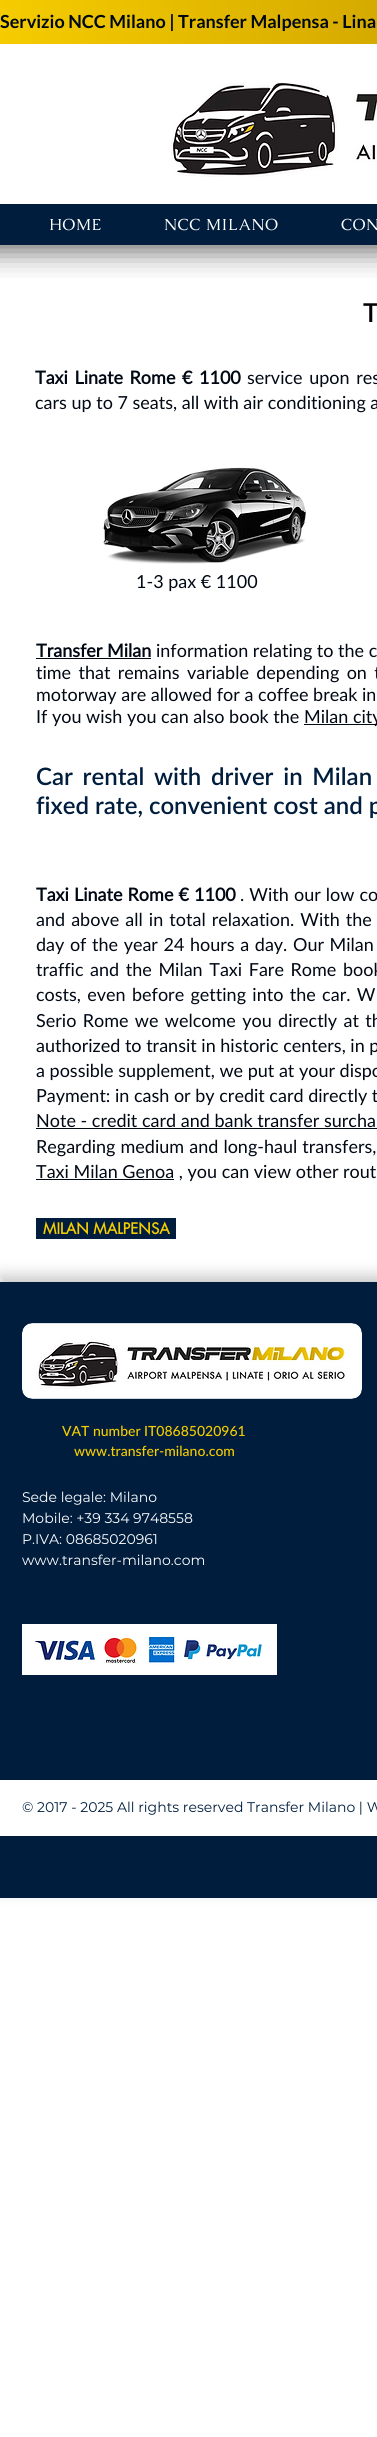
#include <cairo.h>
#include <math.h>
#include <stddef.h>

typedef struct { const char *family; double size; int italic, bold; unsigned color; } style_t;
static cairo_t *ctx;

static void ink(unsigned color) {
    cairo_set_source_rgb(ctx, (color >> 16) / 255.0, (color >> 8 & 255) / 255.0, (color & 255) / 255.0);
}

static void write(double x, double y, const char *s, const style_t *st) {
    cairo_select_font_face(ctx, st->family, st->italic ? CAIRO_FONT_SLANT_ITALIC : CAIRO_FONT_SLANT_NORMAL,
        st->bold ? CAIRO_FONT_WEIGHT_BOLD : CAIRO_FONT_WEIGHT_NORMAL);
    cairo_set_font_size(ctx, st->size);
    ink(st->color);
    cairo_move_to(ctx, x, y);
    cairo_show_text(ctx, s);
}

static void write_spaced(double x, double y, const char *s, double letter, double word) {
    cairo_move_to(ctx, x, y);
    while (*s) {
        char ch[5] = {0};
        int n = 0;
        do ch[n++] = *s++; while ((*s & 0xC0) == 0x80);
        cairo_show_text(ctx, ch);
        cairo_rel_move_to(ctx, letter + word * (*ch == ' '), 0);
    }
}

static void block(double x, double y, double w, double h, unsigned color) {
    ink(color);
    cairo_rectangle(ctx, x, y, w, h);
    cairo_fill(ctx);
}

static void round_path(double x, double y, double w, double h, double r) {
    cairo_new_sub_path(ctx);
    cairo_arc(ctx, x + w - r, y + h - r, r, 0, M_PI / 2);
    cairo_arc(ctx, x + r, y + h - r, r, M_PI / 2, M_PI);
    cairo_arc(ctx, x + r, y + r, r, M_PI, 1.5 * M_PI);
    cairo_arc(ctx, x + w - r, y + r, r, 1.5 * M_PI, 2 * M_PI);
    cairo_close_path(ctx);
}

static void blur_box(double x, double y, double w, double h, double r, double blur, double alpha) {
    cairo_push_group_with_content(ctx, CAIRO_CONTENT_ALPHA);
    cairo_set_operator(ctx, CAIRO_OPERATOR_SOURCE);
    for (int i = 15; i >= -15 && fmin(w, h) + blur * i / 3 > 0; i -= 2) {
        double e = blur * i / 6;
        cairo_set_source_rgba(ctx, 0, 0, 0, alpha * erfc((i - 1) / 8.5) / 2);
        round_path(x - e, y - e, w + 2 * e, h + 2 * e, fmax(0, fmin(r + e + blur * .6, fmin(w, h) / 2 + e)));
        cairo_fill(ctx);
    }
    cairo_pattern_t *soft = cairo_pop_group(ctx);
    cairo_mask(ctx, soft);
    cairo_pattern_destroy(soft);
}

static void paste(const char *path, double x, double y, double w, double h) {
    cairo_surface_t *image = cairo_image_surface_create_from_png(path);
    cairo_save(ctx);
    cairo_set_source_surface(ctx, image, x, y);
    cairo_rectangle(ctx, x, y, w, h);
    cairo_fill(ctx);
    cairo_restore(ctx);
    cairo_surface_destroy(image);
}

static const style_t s1 = {"Lato", 18, 0, 1, 0x000814};
static const style_t s2 = {"Lato SemiBold", 26, 0, 0, 0x000000};
static const style_t s3 = {"Lato", 18, 0, 0, 0x000814};
static const style_t s4 = {"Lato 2", 18, 0, 1, 0x000814};
static const style_t s5 = {"Lato SemiBold", 24, 0, 0, 0x001d3d};
static const style_t s6 = {"futura", 15, 0, 1, 0xf5cc00};
static const style_t s7 = {"Lato Medium", 14, 0, 0, 0xf5cc00};
static const style_t s8 = {"Montserrat", 14, 0, 0, 0xffffff};
static const style_t s9 = {"Montserrat", 14, 0, 0, 0x001d3d};

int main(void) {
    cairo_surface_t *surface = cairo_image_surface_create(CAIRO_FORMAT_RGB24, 377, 2437);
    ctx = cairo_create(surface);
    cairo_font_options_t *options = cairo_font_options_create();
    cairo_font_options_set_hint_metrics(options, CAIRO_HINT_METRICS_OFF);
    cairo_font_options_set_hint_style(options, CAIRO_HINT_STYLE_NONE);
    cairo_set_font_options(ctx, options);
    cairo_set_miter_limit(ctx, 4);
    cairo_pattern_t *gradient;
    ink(0xffffff);
    cairo_paint(ctx);
    cairo_save(ctx);
    cairo_rectangle(ctx, 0, 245, 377, 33);
    cairo_clip(ctx);
    ink(0x000000);
    blur_box(-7, -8, 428, 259, 0, 14.5, 0.6);
    cairo_restore(ctx);
    gradient = cairo_pattern_create_radial(490, 22, 0, 490, 22, 490);
    cairo_pattern_add_color_stop_rgba(gradient, 0, 0.8, 0.627, 0, 1);
    cairo_pattern_add_color_stop_rgba(gradient, 1, 0.961, 0.8, 0, 1);
    cairo_set_source(ctx, gradient);
    cairo_pattern_destroy(gradient);
    cairo_rectangle(ctx, 0, 0, 377, 44);
    cairo_fill(ctx);
    write(0, 28, "Servizio NCC Milano | Transfer Malpensa - Lina", &s1);
    paste("pic1.png", 171, 83, 206, 94);
    block(0, 204, 377, 41, 0x001d3d);
    cairo_select_font_face(ctx, "Caudex", CAIRO_FONT_SLANT_NORMAL, CAIRO_FONT_WEIGHT_NORMAL);
    cairo_set_font_size(ctx, 16);
    ink(0xffffff);
    write_spaced(49, 230, "HOME", 0.75, 0);
    write_spaced(164, 230, "NCC MILANO", 0.75, 0);
    write_spaced(341, 230, "CON", 0.75, 0);
    write(363, 322, "T", &s2);
    cairo_select_font_face(ctx, "Lato 2", CAIRO_FONT_SLANT_NORMAL, CAIRO_FONT_WEIGHT_BOLD);
    cairo_set_font_size(ctx, 18);
    ink(0x000814);
    write_spaced(35, 384, "Taxi Linate Rome € 1100", 0, 2);
    cairo_select_font_face(ctx, "Lato", CAIRO_FONT_SLANT_NORMAL, CAIRO_FONT_WEIGHT_NORMAL);
    write_spaced(247, 384, "service upon res", 0, 2);
    write(35, 409, "cars up to 7 seats, all with air conditioning a", &s3);
    paste("pic2.png", 103, 467, 203, 97);
    write(136, 588, "1-3 pax € 1100", &s3);
    write(36, 657, "Transfer Milan", &s4);
    block(36, 658, 115, 1, 0x000814);
    write(156, 657, "information relating to the c", &s3);
    write_spaced(36, 679, "time that remains variable depending on t", 0, 2.75);
    write(36, 701, "motorway are allowed for a coffee break in", &s3);
    write(36, 723, "If you wish you can also book the", &s3);
    block(304, 724, 73, 1, 0x000814);
    write(304, 723, "Milan city", &s3);
    cairo_select_font_face(ctx, "Lato SemiBold", CAIRO_FONT_SLANT_NORMAL, CAIRO_FONT_WEIGHT_NORMAL);
    cairo_set_font_size(ctx, 24);
    ink(0x001d3d);
    write_spaced(36, 785, "Car rental with driver in Milan", 0, 3.75);
    write(36, 814, "fixed rate, convenient cost and p", &s5);
    cairo_select_font_face(ctx, "Lato 2", CAIRO_FONT_SLANT_NORMAL, CAIRO_FONT_WEIGHT_BOLD);
    cairo_set_font_size(ctx, 18);
    ink(0x000814);
    write_spaced(36, 901, "Taxi Linate Rome € 1100", 0, 0.5);
    cairo_select_font_face(ctx, "Lato", CAIRO_FONT_SLANT_NORMAL, CAIRO_FONT_WEIGHT_NORMAL);
    write_spaced(240, 901, ". With our low co", 0, 0.5);
    write_spaced(36, 926, "and above all in total relaxation. With the", 0, 1.5);
    write_spaced(36, 951, "day of the year 24 hours a day. Our Milan", 0, 1);
    write_spaced(36, 976, "traffic and the Milan Taxi Fare Rome book", 0, 2);
    write_spaced(36, 1001, "costs, even before getting into the car. W", 0, 1.75);
    write_spaced(36, 1027, "Serio Rome we welcome you directly at th", 0, 1.75);
    write(36, 1052, "authorized to transit in historic centers, in p", &s3);
    write(36, 1077, "a possible supplement, we put at your dispo", &s3);
    write(36, 1102, "Payment: in cash or by credit card directly t", &s3);
    write(36, 1127, "Note - credit card and bank transfer surcha", &s3);
    block(36, 1128, 341, 1, 0x000814);
    write_spaced(36, 1153, "Regarding medium and long-haul transfers,", 0, 0.5);
    block(36, 1179, 138, 1, 0x000814);
    write(36, 1178, "Taxi Milan Genoa , you can view other rout", &s3);
    block(36, 1218, 140, 21, 0x001d3d);
    write(43, 1234, "MILAN MALPENSA", &s6);
    ink(0x000000);
    blur_box(0, 1275, 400, 616, 0, 7.5, 0.21);
    block(0, 1282, 377, 616, 0x001d3d);
    paste("pic3.png", 22, 1323, 340, 76);
    write(62, 1436, "VAT number IT08685020961", &s7);
    write(74, 1456, "www.transfer-milano.com", &s7);
    write(22, 1502, "Sede legale: Milano", &s8);
    write(22, 1523, "Mobile: +39 334 9748558", &s8);
    write(22, 1544, "P.IVA: 08685020961", &s8);
    write(22, 1565, "www.transfer-milano.com", &s8);
    paste("pic4.png", 22, 1624, 255, 51);
    block(0, 1780, 377, 56, 0xffffff);
    write(22, 1812, "© 2017 - 2025 All rights reserved Transfer Milano | W", &s9);
    cairo_surface_write_to_png(surface, "screenshot.png");
    cairo_font_options_destroy(options);
    cairo_destroy(ctx);
    cairo_surface_destroy(surface);
    return 0;
}
